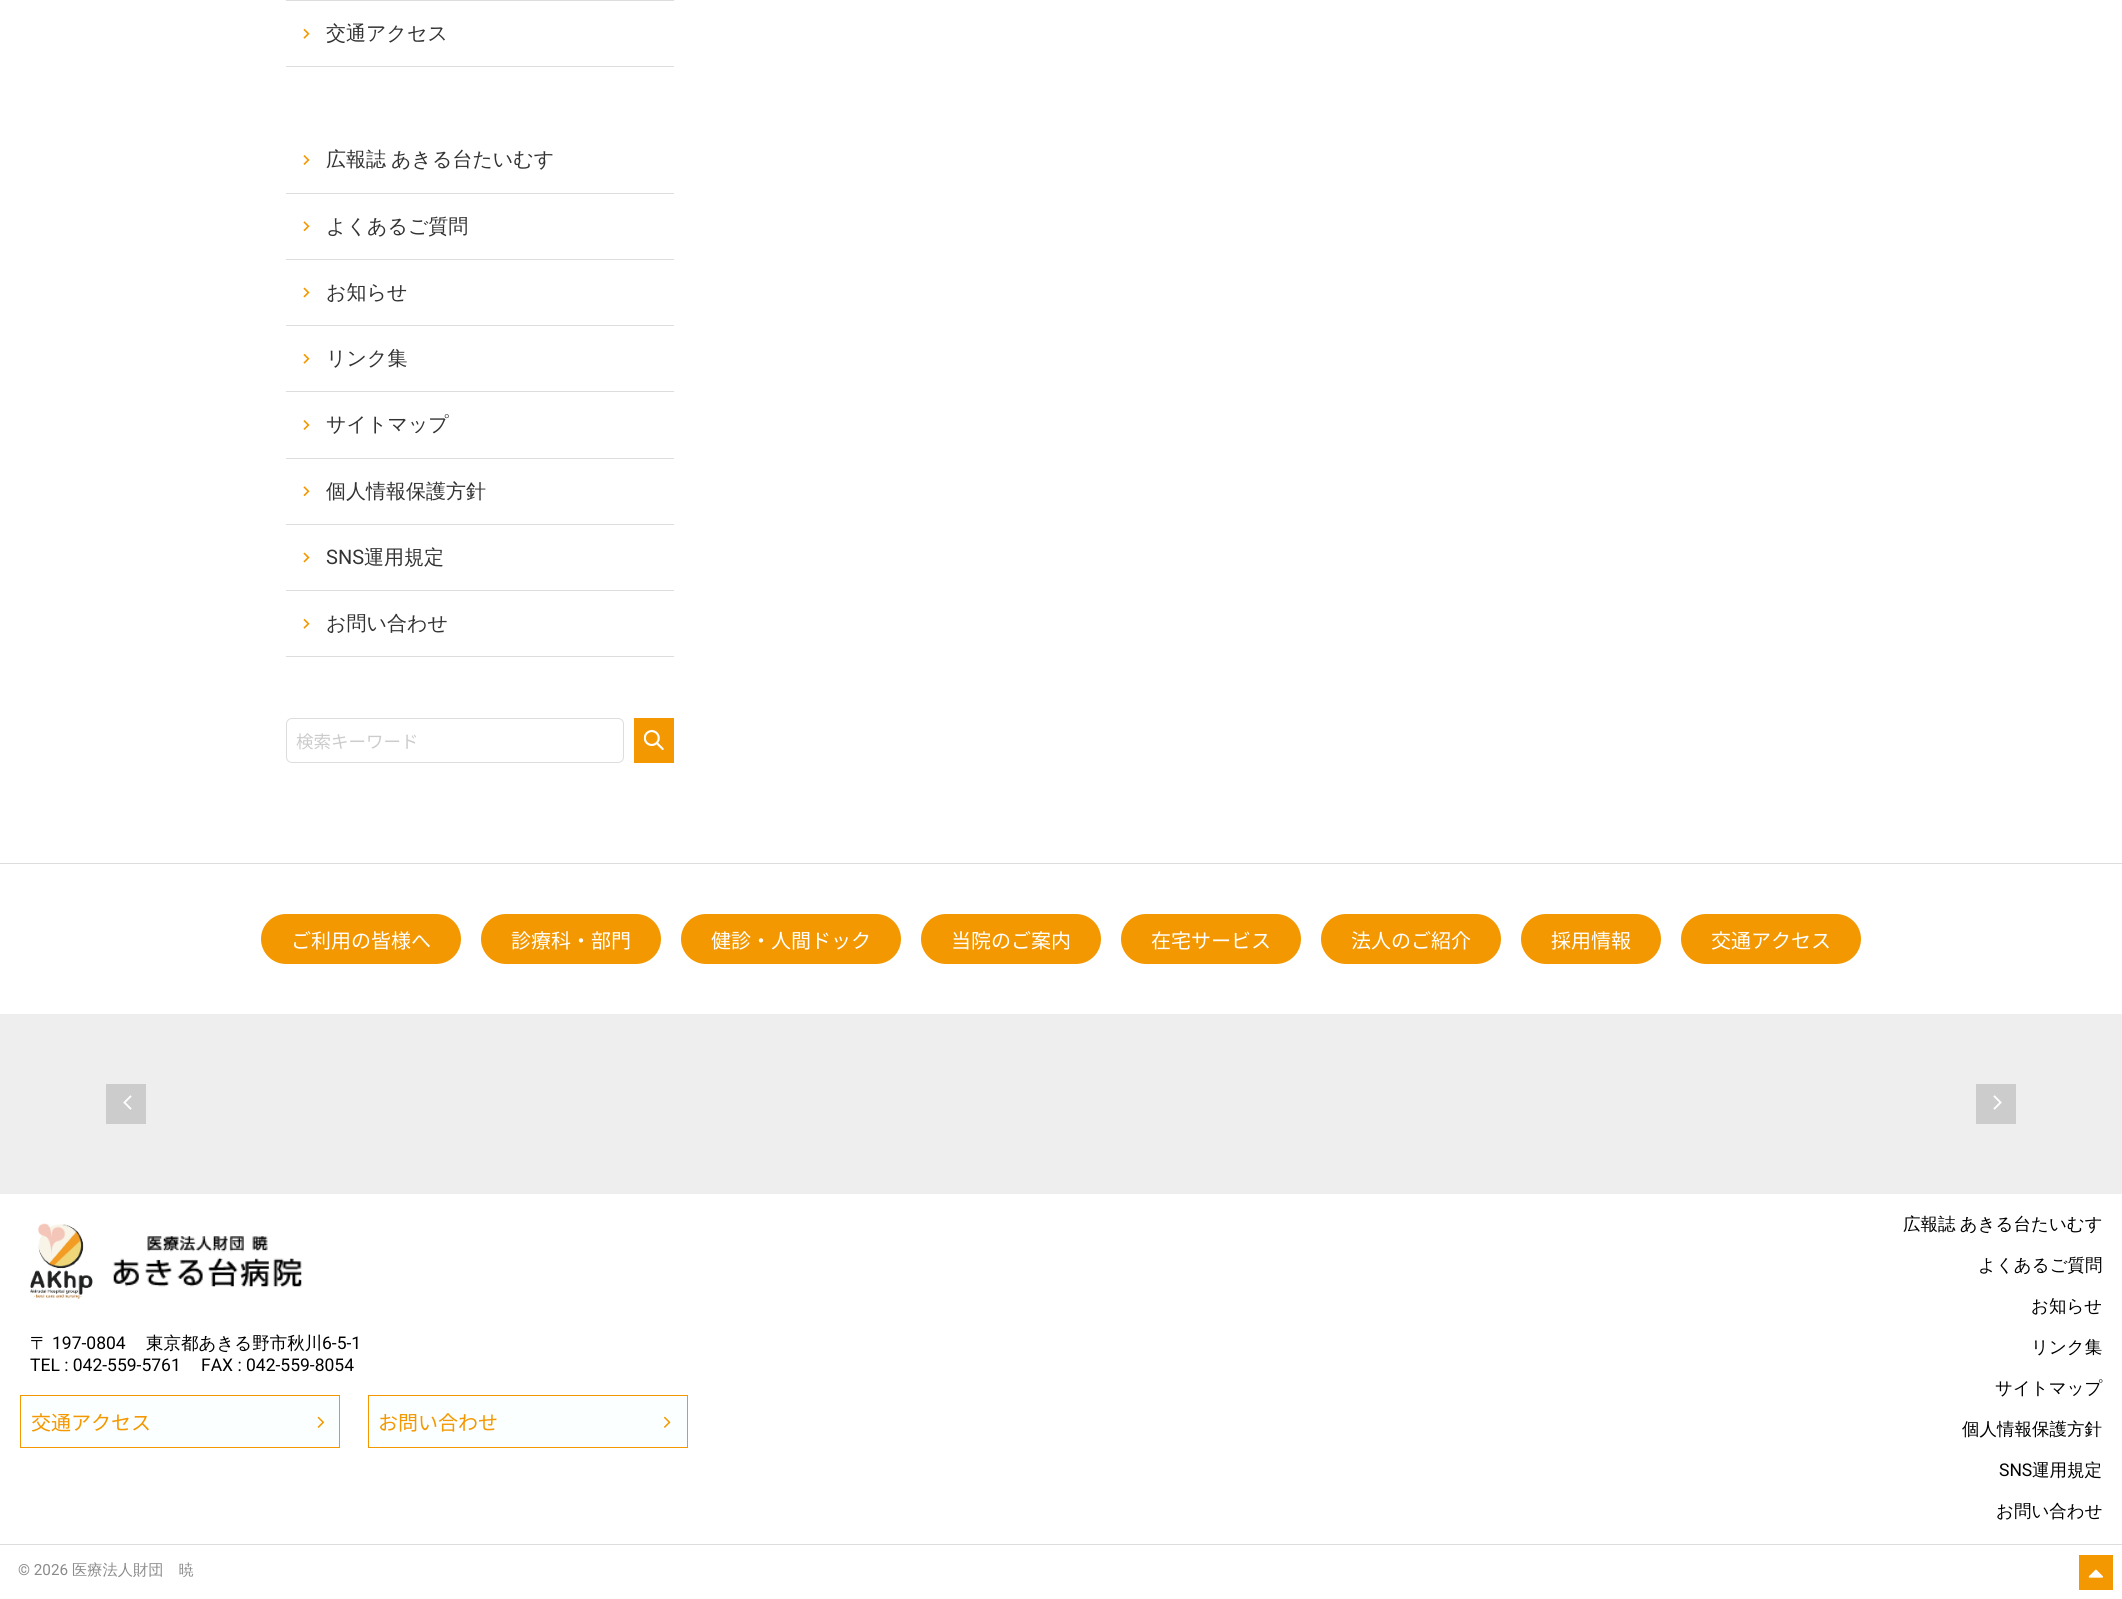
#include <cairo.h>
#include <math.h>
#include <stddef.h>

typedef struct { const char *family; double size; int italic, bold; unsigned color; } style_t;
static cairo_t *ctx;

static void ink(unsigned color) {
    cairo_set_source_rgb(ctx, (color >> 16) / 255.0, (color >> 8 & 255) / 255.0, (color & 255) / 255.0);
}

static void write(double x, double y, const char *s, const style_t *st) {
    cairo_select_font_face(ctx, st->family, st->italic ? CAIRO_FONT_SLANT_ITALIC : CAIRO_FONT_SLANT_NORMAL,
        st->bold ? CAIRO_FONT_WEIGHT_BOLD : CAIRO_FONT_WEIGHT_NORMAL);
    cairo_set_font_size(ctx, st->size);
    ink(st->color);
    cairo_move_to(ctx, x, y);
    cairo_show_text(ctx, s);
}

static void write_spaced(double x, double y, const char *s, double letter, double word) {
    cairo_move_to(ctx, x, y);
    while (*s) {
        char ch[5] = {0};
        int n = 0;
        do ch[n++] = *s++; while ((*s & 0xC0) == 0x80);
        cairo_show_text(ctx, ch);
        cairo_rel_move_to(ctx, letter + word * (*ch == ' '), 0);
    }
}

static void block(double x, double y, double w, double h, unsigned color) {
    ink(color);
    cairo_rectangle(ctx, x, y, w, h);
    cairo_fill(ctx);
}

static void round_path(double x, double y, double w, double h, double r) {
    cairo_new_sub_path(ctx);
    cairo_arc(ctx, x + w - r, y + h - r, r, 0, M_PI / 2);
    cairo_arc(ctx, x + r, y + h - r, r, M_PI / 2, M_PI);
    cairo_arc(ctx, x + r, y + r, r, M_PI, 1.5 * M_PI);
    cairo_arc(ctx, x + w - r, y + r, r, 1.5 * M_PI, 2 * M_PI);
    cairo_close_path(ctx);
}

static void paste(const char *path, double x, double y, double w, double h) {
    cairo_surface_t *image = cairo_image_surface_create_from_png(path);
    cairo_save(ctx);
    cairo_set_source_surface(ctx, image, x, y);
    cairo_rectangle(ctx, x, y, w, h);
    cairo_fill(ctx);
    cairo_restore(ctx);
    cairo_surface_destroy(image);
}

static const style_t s1 = {"WenQuanYi Zen Hei Medium", 20, 0, 0, 0x333333};
static const style_t s2 = {"Roboto", 20, 0, 0, 0x333333};
static const style_t s3 = {"Noto Sans JP Thin", 17.5, 0, 0, 0xcccccc};
static const style_t s4 = {"Noto Sans JP Thin", 20, 0, 0, 0xffffff};
static const style_t s5 = {"WenQuanYi Zen Hei Medium", 17.5, 0, 0, 0x000000};
static const style_t s6 = {"Roboto", 17.5, 0, 0, 0x000000};
static const style_t s7 = {"Noto Sans JP Thin", 20, 0, 0, 0xf39800};
static const style_t s8 = {"Roboto", 15.25, 0, 0, 0x8a8a8a};
static const style_t s9 = {"WenQuanYi Zen Hei Medium", 15.25, 0, 0, 0x8a8a8a};

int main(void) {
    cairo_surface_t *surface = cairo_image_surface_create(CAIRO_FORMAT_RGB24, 2122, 1599);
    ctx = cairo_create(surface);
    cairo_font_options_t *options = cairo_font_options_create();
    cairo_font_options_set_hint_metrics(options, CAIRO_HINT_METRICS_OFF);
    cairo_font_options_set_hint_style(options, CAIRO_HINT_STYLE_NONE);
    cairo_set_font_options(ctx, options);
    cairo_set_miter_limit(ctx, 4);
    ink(0xffffff);
    cairo_paint(ctx);
    block(286, 0, 388, 1, 0xdddddd);
    block(286, 66, 388, 1, 0xdddddd);
    paste("pic1.png", 303, 28, 7, 11);
    write(326, 40, "交通アクセス", &s1);
    block(286, 193, 388, 1, 0xdddddd);
    paste("pic2.png", 303, 155, 7, 10);
    ink(0x333333);
    write_spaced(326, 166, "広報誌 あきる台たいむす", 0, -1);
    block(286, 259, 388, 1, 0xdddddd);
    paste("pic3.png", 303, 221, 7, 11);
    write(326, 233, "よくあるご質問", &s1);
    block(286, 325, 388, 1, 0xdddddd);
    paste("pic4.png", 303, 287, 7, 11);
    write(326, 299, "お知らせ", &s1);
    block(286, 391, 388, 1, 0xdddddd);
    paste("pic1.png", 303, 353, 7, 11);
    write(326, 365, "リンク集", &s1);
    block(286, 458, 388, 1, 0xdddddd);
    paste("pic2.png", 303, 420, 7, 10);
    write(326, 431, "サイトマップ", &s1);
    block(286, 524, 388, 1, 0xdddddd);
    paste("pic3.png", 303, 486, 7, 11);
    write(326, 498, "個人情報保護方針", &s1);
    block(286, 590, 388, 1, 0xdddddd);
    paste("pic4.png", 303, 552, 7, 11);
    write(326, 564, "SNS", &s2);
    write(364, 564, "運用規定", &s1);
    block(286, 656, 388, 1, 0xdddddd);
    paste("pic1.png", 303, 618, 7, 11);
    write(326, 630, "お問い合わせ", &s1);
    round_path(286.5, 718.5, 337, 44, 5.5);
    ink(0xdddddd);
    cairo_set_line_width(ctx, 1);
    cairo_stroke(ctx);
    write(296, 748, "検索キーワード", &s3);
    block(634, 718, 40, 45, 0xf39800);
    paste("pic5.png", 644, 730, 20, 20);
    block(0, 863, 2122, 1, 0xdddddd);
    ink(0xf39800);
    round_path(261, 914, 200, 50, 25);
    cairo_fill(ctx);
    write(291, 948, "ご利用の皆様へ", &s4);
    ink(0xf39800);
    round_path(481, 914, 180, 50, 25);
    cairo_fill(ctx);
    write(511, 948, "診療科・部門", &s4);
    ink(0xf39800);
    round_path(681, 914, 220, 50, 25);
    cairo_fill(ctx);
    write(711, 948, "健診・人間ドック", &s4);
    ink(0xf39800);
    round_path(921, 914, 180, 50, 25);
    cairo_fill(ctx);
    write(951, 948, "当院のご案内", &s4);
    ink(0xf39800);
    round_path(1121, 914, 180, 50, 25);
    cairo_fill(ctx);
    write(1151, 948, "在宅サービス", &s4);
    ink(0xf39800);
    round_path(1321, 914, 180, 50, 25);
    cairo_fill(ctx);
    write(1351, 948, "法人のご紹介", &s4);
    ink(0xf39800);
    round_path(1521, 914, 140, 50, 25);
    cairo_fill(ctx);
    write(1551, 948, "採用情報", &s4);
    ink(0xf39800);
    round_path(1681, 914, 180, 50, 25);
    cairo_fill(ctx);
    write(1711, 948, "交通アクセス", &s4);
    block(0, 1014, 2122, 180, 0xeeeeee);
    block(106, 1084, 40, 40, 0xcccccc);
    paste("pic6.png", 123, 1095, 9, 15);
    block(1976, 1084, 40, 40, 0xcccccc);
    paste("pic7.png", 1993, 1095, 9, 15);
    paste("pic8.png", 30, 1223, 63, 76);
    paste("pic9.png", 113, 1236, 189, 51);
    write(30, 1349, "〒", &s5);
    write(52, 1349, "197-0804", &s6);
    write(146, 1349, "東京都あきる野市秋川", &s5);
    write(322, 1349, "6-5-1", &s6);
    write(30, 1371, "TEL : 042-559-5761", &s6);
    write(201, 1371, "FAX : 042-559-8054", &s6);
    ink(0xfcffff);
    cairo_rectangle(ctx, 20.5, 1395.5, 319, 52);
    cairo_fill_preserve(ctx);
    ink(0xf39800);
    cairo_stroke(ctx);
    write(31, 1430, "交通アクセス", &s7);
    paste("pic10.png", 317, 1416, 8, 12);
    ink(0xfcffff);
    cairo_rectangle(ctx, 368.5, 1395.5, 319, 52);
    cairo_fill_preserve(ctx);
    ink(0xf39800);
    cairo_stroke(ctx);
    write(378, 1430, "お問い合わせ", &s7);
    paste("pic11.png", 663, 1416, 8, 12);
    cairo_select_font_face(ctx, "WenQuanYi Zen Hei Medium", CAIRO_FONT_SLANT_NORMAL, CAIRO_FONT_WEIGHT_NORMAL);
    cairo_set_font_size(ctx, 17.5);
    ink(0x000000);
    write_spaced(1903, 1230, "広報誌 あきる台たいむす", 0, -1);
    write(1978, 1271, "よくあるご質問", &s5);
    write(2031, 1312, "お知らせ", &s5);
    write(2031, 1353, "リンク集", &s5);
    write(1995, 1394, "サイトマップ", &s5);
    write(1962, 1435, "個人情報保護方針", &s5);
    write(1999, 1476, "SNS", &s6);
    write(2032, 1476, "運用規定", &s5);
    write(1996, 1517, "お問い合わせ", &s5);
    block(0, 1544, 2122, 1, 0xdddddd);
    write(18, 1575, "© 2026", &s8);
    write(72, 1575, "医療法人財団　暁", &s9);
    block(2079, 1555, 34, 35, 0xf39800);
    paste("pic12.png", 2088, 1569, 15, 9);
    cairo_surface_write_to_png(surface, "screenshot.png");
    cairo_font_options_destroy(options);
    cairo_destroy(ctx);
    cairo_surface_destroy(surface);
    return 0;
}
